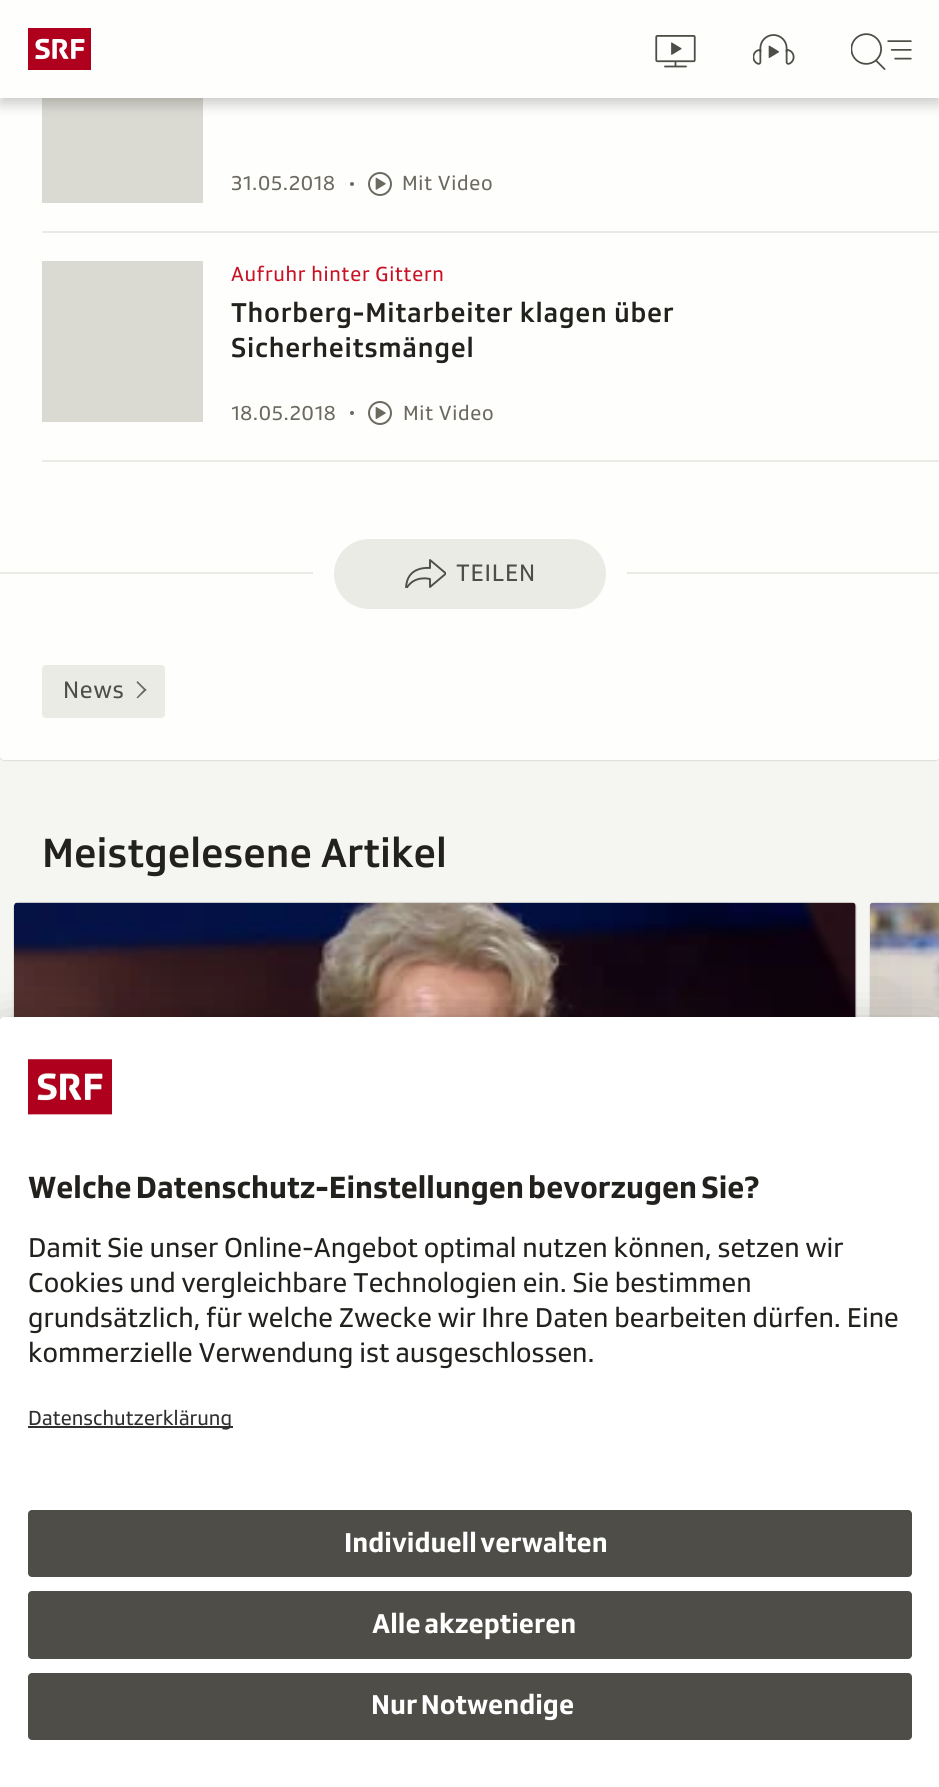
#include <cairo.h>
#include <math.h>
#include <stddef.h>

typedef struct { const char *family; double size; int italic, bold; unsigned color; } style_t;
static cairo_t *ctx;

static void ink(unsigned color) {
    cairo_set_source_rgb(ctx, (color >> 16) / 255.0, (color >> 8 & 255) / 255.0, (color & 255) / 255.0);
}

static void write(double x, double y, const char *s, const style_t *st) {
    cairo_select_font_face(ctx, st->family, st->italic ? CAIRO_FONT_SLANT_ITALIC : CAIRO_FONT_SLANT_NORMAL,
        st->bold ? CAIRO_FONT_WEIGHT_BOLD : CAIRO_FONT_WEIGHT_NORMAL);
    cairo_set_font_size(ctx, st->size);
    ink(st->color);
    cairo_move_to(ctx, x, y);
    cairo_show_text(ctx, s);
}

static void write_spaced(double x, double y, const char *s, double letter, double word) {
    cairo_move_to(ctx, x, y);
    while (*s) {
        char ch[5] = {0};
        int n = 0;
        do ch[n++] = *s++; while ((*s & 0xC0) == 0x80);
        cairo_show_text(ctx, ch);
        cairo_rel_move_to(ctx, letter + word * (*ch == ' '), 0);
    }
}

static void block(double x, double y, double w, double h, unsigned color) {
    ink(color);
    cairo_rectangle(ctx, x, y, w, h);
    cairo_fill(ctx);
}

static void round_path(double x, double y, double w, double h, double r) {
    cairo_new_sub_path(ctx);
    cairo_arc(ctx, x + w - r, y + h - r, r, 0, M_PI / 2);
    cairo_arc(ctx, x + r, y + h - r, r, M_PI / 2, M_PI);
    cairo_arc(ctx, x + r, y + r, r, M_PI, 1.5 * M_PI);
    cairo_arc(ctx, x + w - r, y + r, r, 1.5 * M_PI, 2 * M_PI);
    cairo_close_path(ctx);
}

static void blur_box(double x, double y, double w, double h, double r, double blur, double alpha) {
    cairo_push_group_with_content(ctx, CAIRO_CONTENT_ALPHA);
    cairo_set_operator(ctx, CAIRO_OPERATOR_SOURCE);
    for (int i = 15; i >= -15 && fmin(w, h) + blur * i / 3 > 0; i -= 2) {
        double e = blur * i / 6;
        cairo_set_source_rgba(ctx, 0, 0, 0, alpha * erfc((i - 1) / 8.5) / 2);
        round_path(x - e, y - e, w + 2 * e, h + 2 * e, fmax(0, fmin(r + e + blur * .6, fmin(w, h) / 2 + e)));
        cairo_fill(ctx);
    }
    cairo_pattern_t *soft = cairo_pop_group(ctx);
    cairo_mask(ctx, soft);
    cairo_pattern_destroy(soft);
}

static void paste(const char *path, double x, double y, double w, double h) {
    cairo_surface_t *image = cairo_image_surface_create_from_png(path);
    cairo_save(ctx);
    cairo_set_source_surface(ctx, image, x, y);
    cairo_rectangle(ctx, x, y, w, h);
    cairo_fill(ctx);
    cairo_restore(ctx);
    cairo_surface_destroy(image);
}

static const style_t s1 = {"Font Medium", 42, 0, 0, 0x22211d};
static const style_t s2 = {"Font", 28, 0, 0, 0x22211d};
static const style_t s3 = {"Font", 21, 0, 0, 0x303030};

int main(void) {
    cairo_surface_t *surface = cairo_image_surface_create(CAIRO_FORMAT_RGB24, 939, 1787);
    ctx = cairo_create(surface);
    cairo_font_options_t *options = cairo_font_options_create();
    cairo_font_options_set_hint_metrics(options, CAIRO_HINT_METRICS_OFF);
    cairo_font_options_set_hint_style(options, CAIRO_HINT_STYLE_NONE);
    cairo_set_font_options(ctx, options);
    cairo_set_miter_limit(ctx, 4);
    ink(0xf5f5f2);
    cairo_paint(ctx);
    ink(0x000000);
    blur_box(0, -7, 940, 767, 4, 1, 0.08);
    blur_box(0, -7, 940, 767, 4, 1, 0.16);
    ink(0xfefefd);
    round_path(0, -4, 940, 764, 4);
    cairo_fill(ctx);
    block(42, 98, 161, 105, 0xdadad2);
    ink(0x000000);
    blur_box(0, 25, 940, 73, 0, 7, 0.08);
    blur_box(0, 32, 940, 73, 0, 7, 0.16);
    block(0, 16, 939, 82, 0xfefefd);
    paste("pic1.png", 28, 28, 63, 42);
    paste("pic2.png", 655, 35, 41, 33);
    paste("pic3.png", 753, 34, 42, 31);
    paste("pic4.png", 851, 33, 61, 37);
    block(42, 231, 897, 2, 0xebebe5);
    cairo_select_font_face(ctx, "Font", CAIRO_FONT_SLANT_NORMAL, CAIRO_FONT_WEIGHT_NORMAL);
    cairo_set_font_size(ctx, 21);
    ink(0x6b6960);
    write_spaced(231, 190, "31.05.2018", 0.7, 0);
    cairo_new_path(ctx);
    cairo_arc(ctx, 352, 184, 2, 0, 2 * M_PI);
    cairo_fill(ctx);
    paste("pic5.png", 368, 172, 24, 24);
    write_spaced(402, 190, "Mit Video", 0.7, 0);
    block(42, 460, 897, 2, 0xebebe5);
    block(42, 261, 161, 161, 0xdadad2);
    ink(0xc91024);
    write_spaced(231, 281, "Aufruhr hinter Gittern", 0.7, 0);
    cairo_select_font_face(ctx, "Font Medium", CAIRO_FONT_SLANT_NORMAL, CAIRO_FONT_WEIGHT_NORMAL);
    cairo_set_font_size(ctx, 28);
    ink(0x22211d);
    write_spaced(231, 322, "Thorberg-Mitarbeiter klagen über", 0.7, 0);
    write_spaced(231, 357, "Sicherheitsmängel", 0.7, 0);
    cairo_select_font_face(ctx, "Font", CAIRO_FONT_SLANT_NORMAL, CAIRO_FONT_WEIGHT_NORMAL);
    cairo_set_font_size(ctx, 21);
    ink(0x6b6960);
    write_spaced(231, 420, "18.05.2018", 0.7, 0);
    cairo_new_path(ctx);
    cairo_arc(ctx, 352, 413, 2, 0, 2 * M_PI);
    cairo_fill(ctx);
    paste("pic6.png", 368, 401, 24, 24);
    write_spaced(403, 420, "Mit Video", 0.7, 0);
    block(0, 572, 939, 2, 0xebebe5);
    block(313, 572, 314, 2, 0xfefefd);
    ink(0xebebe5);
    round_path(334, 539, 272, 70, 35);
    cairo_fill(ctx);
    cairo_save(ctx);
    cairo_rectangle(ctx, 404, 558, 42, 30);
    cairo_clip(ctx);
    cairo_new_path(ctx);
    cairo_move_to(ctx, 430, 568);
    cairo_curve_to(ctx, 430, 568, 406, 565, 406, 589);
    cairo_curve_to(ctx, 414, 574.5, 430, 579, 430, 579);
    cairo_line_to(ctx, 430, 587);
    cairo_line_to(ctx, 446, 573.5);
    cairo_line_to(ctx, 430, 560);
    cairo_close_path(ctx);
    ink(0x4e4d47);
    cairo_set_line_width(ctx, 1.9);
    cairo_set_line_join(ctx, CAIRO_LINE_JOIN_ROUND);
    cairo_stroke(ctx);
    cairo_restore(ctx);
    cairo_set_font_size(ctx, 24.5);
    ink(0x4e4d47);
    write_spaced(456, 581, "TEILEN", 0.7, 0);
    ink(0xebebe5);
    round_path(42, 665, 123, 53, 4);
    cairo_fill(ctx);
    ink(0x4e4d47);
    write_spaced(63, 698, "News", 0.7, 0);
    ink(0x6b6960);
    cairo_new_path(ctx);
    cairo_move_to(ctx, 136.5, 682.5);
    cairo_line_to(ctx, 137.5, 681);
    cairo_line_to(ctx, 146.5, 690);
    cairo_line_to(ctx, 145, 691);
    cairo_close_path(ctx);
    cairo_fill(ctx);
    cairo_new_path(ctx);
    cairo_move_to(ctx, 136.5, 697.5);
    cairo_line_to(ctx, 145, 688.5);
    cairo_line_to(ctx, 146.5, 690);
    cairo_line_to(ctx, 137.5, 698.5);
    cairo_close_path(ctx);
    cairo_fill(ctx);
    write(42, 867, "Meistgelesene Artikel", &s1);
    ink(0x000000);
    blur_box(14, 903, 842, 667, 4, 1, 0.08);
    blur_box(14, 903, 842, 667, 4, 1, 0.16);
    ink(0xdadad2);
    round_path(14, 903, 842, 473, 4);
    cairo_fill(ctx);
    paste("pic7.png", 14, 902, 842, 115);
    ink(0x000000);
    blur_box(870, 903, 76, 667, 4, 1, 0.16);
    paste("pic8.png", 870, 902, 69, 117);
    blur_box(0, 1052, 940, 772, 4, 24.5, 0.3);
    blur_box(0, 1026, 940, 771, 4, 23, 0.22);
    ink(0xffffff);
    cairo_new_path(ctx);
    cairo_move_to(ctx, 4, 1017);
    cairo_line_to(ctx, 936, 1017);
    cairo_curve_to(ctx, 938, 1017, 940, 1019, 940, 1021);
    cairo_line_to(ctx, 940, 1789);
    cairo_line_to(ctx, 0, 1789);
    cairo_line_to(ctx, 0, 1021);
    cairo_curve_to(ctx, 0, 1019, 2, 1017, 4, 1017);
    cairo_close_path(ctx);
    cairo_fill(ctx);
    cairo_new_path(ctx);
    cairo_move_to(ctx, 4, 1017);
    cairo_line_to(ctx, 936, 1017);
    cairo_curve_to(ctx, 938, 1017, 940, 1019, 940, 1021);
    cairo_line_to(ctx, 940, 1489);
    cairo_line_to(ctx, 0, 1489);
    cairo_line_to(ctx, 0, 1021);
    cairo_curve_to(ctx, 0, 1019, 2, 1017, 4, 1017);
    cairo_close_path(ctx);
    cairo_fill(ctx);
    paste("pic9.png", 28, 1059, 84, 56);
    cairo_select_font_face(ctx, "Font", CAIRO_FONT_SLANT_NORMAL, CAIRO_FONT_WEIGHT_BOLD);
    cairo_set_font_size(ctx, 31.5);
    ink(0x22211d);
    write_spaced(28, 1198, "Welche Datenschutz-Einstellungen bevorzugen Sie?", 0, -2);
    write(28, 1257, "Damit Sie unser Online-Angebot optimal nutzen können, setzen wir", &s2);
    write(28, 1292, "Cookies und vergleichbare Technologien ein. Sie bestimmen", &s2);
    write(28, 1327, "grundsätzlich, für welche Zwecke wir Ihre Daten bearbeiten dürfen. Eine", &s2);
    write(28, 1362, "kommerzielle Verwendung ist ausgeschlossen.", &s2);
    block(28, 1426, 205, 2, 0x303030);
    write(28, 1425, "Datenschutzerklärung", &s3);
    ink(0x4e4d47);
    round_path(28, 1510, 884, 67, 4);
    cairo_fill(ctx);
    cairo_select_font_face(ctx, "Font", CAIRO_FONT_SLANT_NORMAL, CAIRO_FONT_WEIGHT_BOLD);
    cairo_set_font_size(ctx, 28);
    ink(0xffffff);
    write_spaced(344, 1552, "Individuell verwalten", 0, -2);
    ink(0x4e4d47);
    round_path(28, 1591, 884, 68, 4);
    cairo_fill(ctx);
    ink(0xffffff);
    write_spaced(372, 1633, "Alle akzeptieren", 0, -2);
    ink(0x4e4d47);
    round_path(28, 1673, 884, 67, 4);
    cairo_fill(ctx);
    ink(0xffffff);
    write_spaced(371, 1714, "Nur Notwendige", 0, -2);
    cairo_surface_write_to_png(surface, "screenshot.png");
    cairo_font_options_destroy(options);
    cairo_destroy(ctx);
    cairo_surface_destroy(surface);
    return 0;
}
